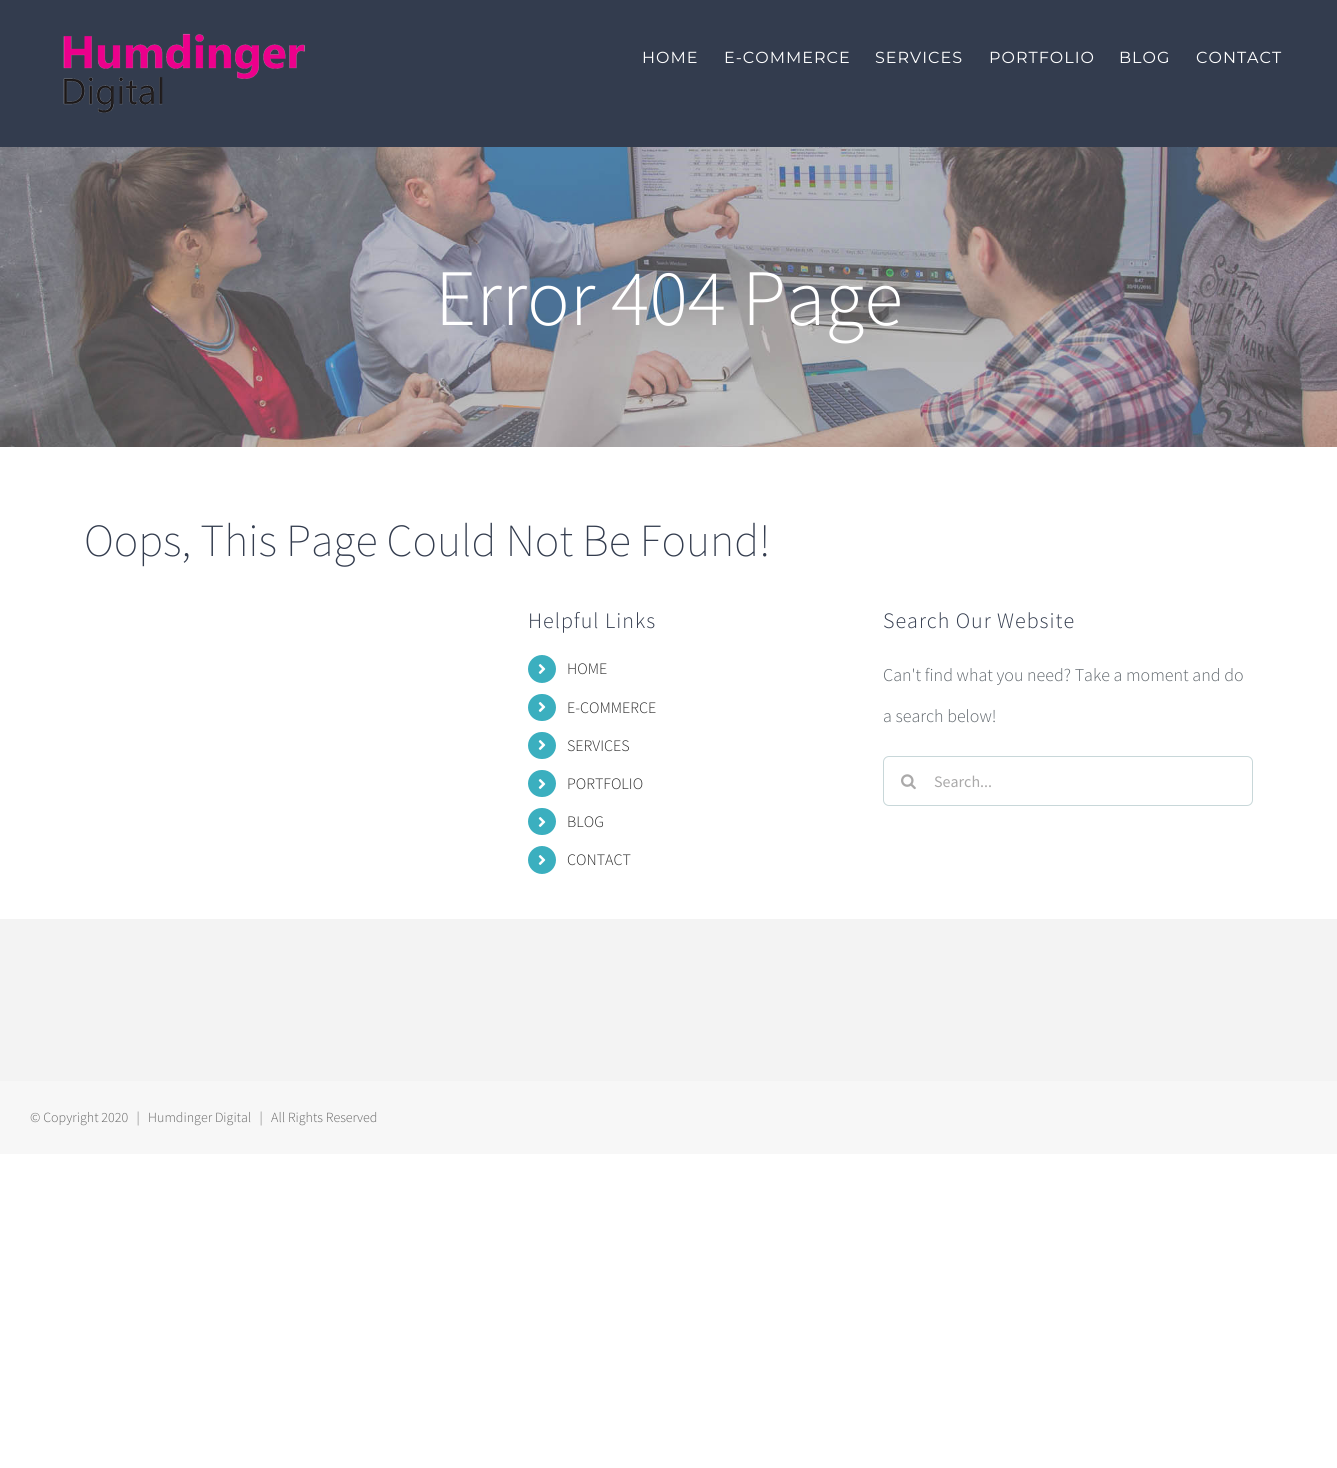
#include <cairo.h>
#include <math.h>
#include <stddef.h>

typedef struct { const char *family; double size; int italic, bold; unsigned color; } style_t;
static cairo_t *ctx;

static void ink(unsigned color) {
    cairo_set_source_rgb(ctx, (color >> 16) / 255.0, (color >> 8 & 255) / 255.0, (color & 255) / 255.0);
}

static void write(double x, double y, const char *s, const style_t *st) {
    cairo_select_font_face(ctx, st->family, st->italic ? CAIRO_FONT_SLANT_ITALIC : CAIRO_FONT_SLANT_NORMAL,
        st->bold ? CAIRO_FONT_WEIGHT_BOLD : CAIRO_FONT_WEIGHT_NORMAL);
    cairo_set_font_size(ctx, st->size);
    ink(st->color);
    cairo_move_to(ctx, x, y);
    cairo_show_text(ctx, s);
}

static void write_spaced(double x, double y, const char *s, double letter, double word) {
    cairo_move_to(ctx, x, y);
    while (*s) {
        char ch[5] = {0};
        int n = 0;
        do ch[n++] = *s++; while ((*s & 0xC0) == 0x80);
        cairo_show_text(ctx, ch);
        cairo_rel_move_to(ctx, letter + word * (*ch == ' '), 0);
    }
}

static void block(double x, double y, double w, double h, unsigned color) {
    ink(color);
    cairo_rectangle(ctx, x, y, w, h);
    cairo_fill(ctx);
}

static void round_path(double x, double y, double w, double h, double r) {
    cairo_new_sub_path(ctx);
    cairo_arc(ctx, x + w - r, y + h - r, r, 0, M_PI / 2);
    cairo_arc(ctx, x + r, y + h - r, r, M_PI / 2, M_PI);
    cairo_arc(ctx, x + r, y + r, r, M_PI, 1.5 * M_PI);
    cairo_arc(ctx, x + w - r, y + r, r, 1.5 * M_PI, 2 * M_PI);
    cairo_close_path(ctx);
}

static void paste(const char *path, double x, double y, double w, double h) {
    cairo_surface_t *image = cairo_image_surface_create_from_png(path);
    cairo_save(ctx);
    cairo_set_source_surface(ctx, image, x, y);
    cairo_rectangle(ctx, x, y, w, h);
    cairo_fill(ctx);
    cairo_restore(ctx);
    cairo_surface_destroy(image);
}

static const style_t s1 = {"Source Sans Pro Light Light", 80, 0, 0, 0xffffff};
static const style_t s2 = {"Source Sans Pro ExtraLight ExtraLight", 46, 0, 0, 0x333c4e};
static const style_t s3 = {"Source Sans Pro Light Light", 16, 0, 0, 0x2b2b2b};
static const style_t s4 = {"Source Sans Pro Light Light", 18, 0, 0, 0x60676d};
static const style_t s5 = {"Source Sans Pro", 16, 0, 0, 0xaaa9a9};
static const style_t s6 = {"Source Sans Pro Light Light", 14, 0, 0, 0x666666};

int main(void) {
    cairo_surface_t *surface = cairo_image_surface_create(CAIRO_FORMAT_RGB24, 1337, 1468);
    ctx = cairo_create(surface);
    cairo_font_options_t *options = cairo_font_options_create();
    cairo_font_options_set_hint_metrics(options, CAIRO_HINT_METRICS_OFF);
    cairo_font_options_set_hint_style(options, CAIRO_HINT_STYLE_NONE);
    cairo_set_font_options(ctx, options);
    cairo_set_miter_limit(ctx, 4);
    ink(0xffffff);
    cairo_paint(ctx);
    block(0, 0, 1337, 147, 0x333c4e);
    paste("pic1.png", 63, 33, 242, 80);
    cairo_select_font_face(ctx, "Montserrat Thin", CAIRO_FONT_SLANT_NORMAL, CAIRO_FONT_WEIGHT_NORMAL);
    cairo_set_font_size(ctx, 16);
    ink(0xffffff);
    write_spaced(642, 63, "HOME", 1, 0);
    write_spaced(724, 63, "E-COMMERCE", 1, 0);
    write_spaced(875, 63, "SERVICES", 1, 0);
    write_spaced(989, 63, "PORTFOLIO", 1, 0);
    write_spaced(1119, 63, "BLOG", 1, 0);
    write_spaced(1196, 63, "CONTACT", 1, 0);
    paste("pic2.png", 0, 147, 1337, 300);
    write(435, 325, "Error 404 Page", &s1);
    write(84, 556, "Oops, This Page Could Not Be Found!", &s2);
    cairo_select_font_face(ctx, "Source Sans Pro Light Light", CAIRO_FONT_SLANT_NORMAL, CAIRO_FONT_WEIGHT_NORMAL);
    cairo_set_font_size(ctx, 22);
    write_spaced(528, 628, "Helpful Links", 1, 0);
    ink(0x3bafbf);
    cairo_new_path(ctx);
    cairo_arc(ctx, 542, 669, 14, 0, 2 * M_PI);
    cairo_fill(ctx);
    paste("pic3.png", 538, 664, 8, 10);
    write(567, 674, "HOME", &s3);
    ink(0x3bafbf);
    round_path(528, 694, 28, 27, 13.5);
    cairo_fill(ctx);
    paste("pic3.png", 538, 702, 8, 10);
    write(567, 713, "E-COMMERCE", &s3);
    ink(0x3bafbf);
    round_path(528, 732, 28, 27, 13.5);
    cairo_fill(ctx);
    paste("pic3.png", 538, 740, 8, 10);
    write(567, 751, "SERVICES", &s3);
    ink(0x3bafbf);
    round_path(528, 770, 28, 27, 13.5);
    cairo_fill(ctx);
    paste("pic3.png", 538, 779, 8, 10);
    write(567, 789, "PORTFOLIO", &s3);
    ink(0x3bafbf);
    round_path(528, 808, 28, 27, 13.5);
    cairo_fill(ctx);
    paste("pic3.png", 538, 817, 8, 10);
    write(567, 827, "BLOG", &s3);
    ink(0x3bafbf);
    cairo_new_path(ctx);
    cairo_arc(ctx, 542, 860, 14, 0, 2 * M_PI);
    cairo_fill(ctx);
    paste("pic3.png", 538, 855, 8, 10);
    write(567, 865, "CONTACT", &s3);
    cairo_set_font_size(ctx, 22);
    ink(0x333c4e);
    write_spaced(883, 628, "Search Our Website", 1, 0);
    write(883, 681, "Can't find what you need? Take a moment and do", &s4);
    write(883, 722, "a search below!", &s4);
    round_path(883.5, 756.5, 369, 49, 5.5);
    ink(0xc8d7d9);
    cairo_set_line_width(ctx, 1);
    cairo_stroke(ctx);
    paste("pic4.png", 901, 774, 15, 16);
    write(934, 787, "Search...", &s5);
    block(0, 919, 1337, 162, 0xf3f3f3);
    block(0, 1081, 1337, 73, 0xf7f7f7);
    write(30, 1122, "© Copyright 2020   |   Humdinger Digital   |   All Rights Reserved", &s6);
    cairo_surface_write_to_png(surface, "screenshot.png");
    cairo_font_options_destroy(options);
    cairo_destroy(ctx);
    cairo_surface_destroy(surface);
    return 0;
}
